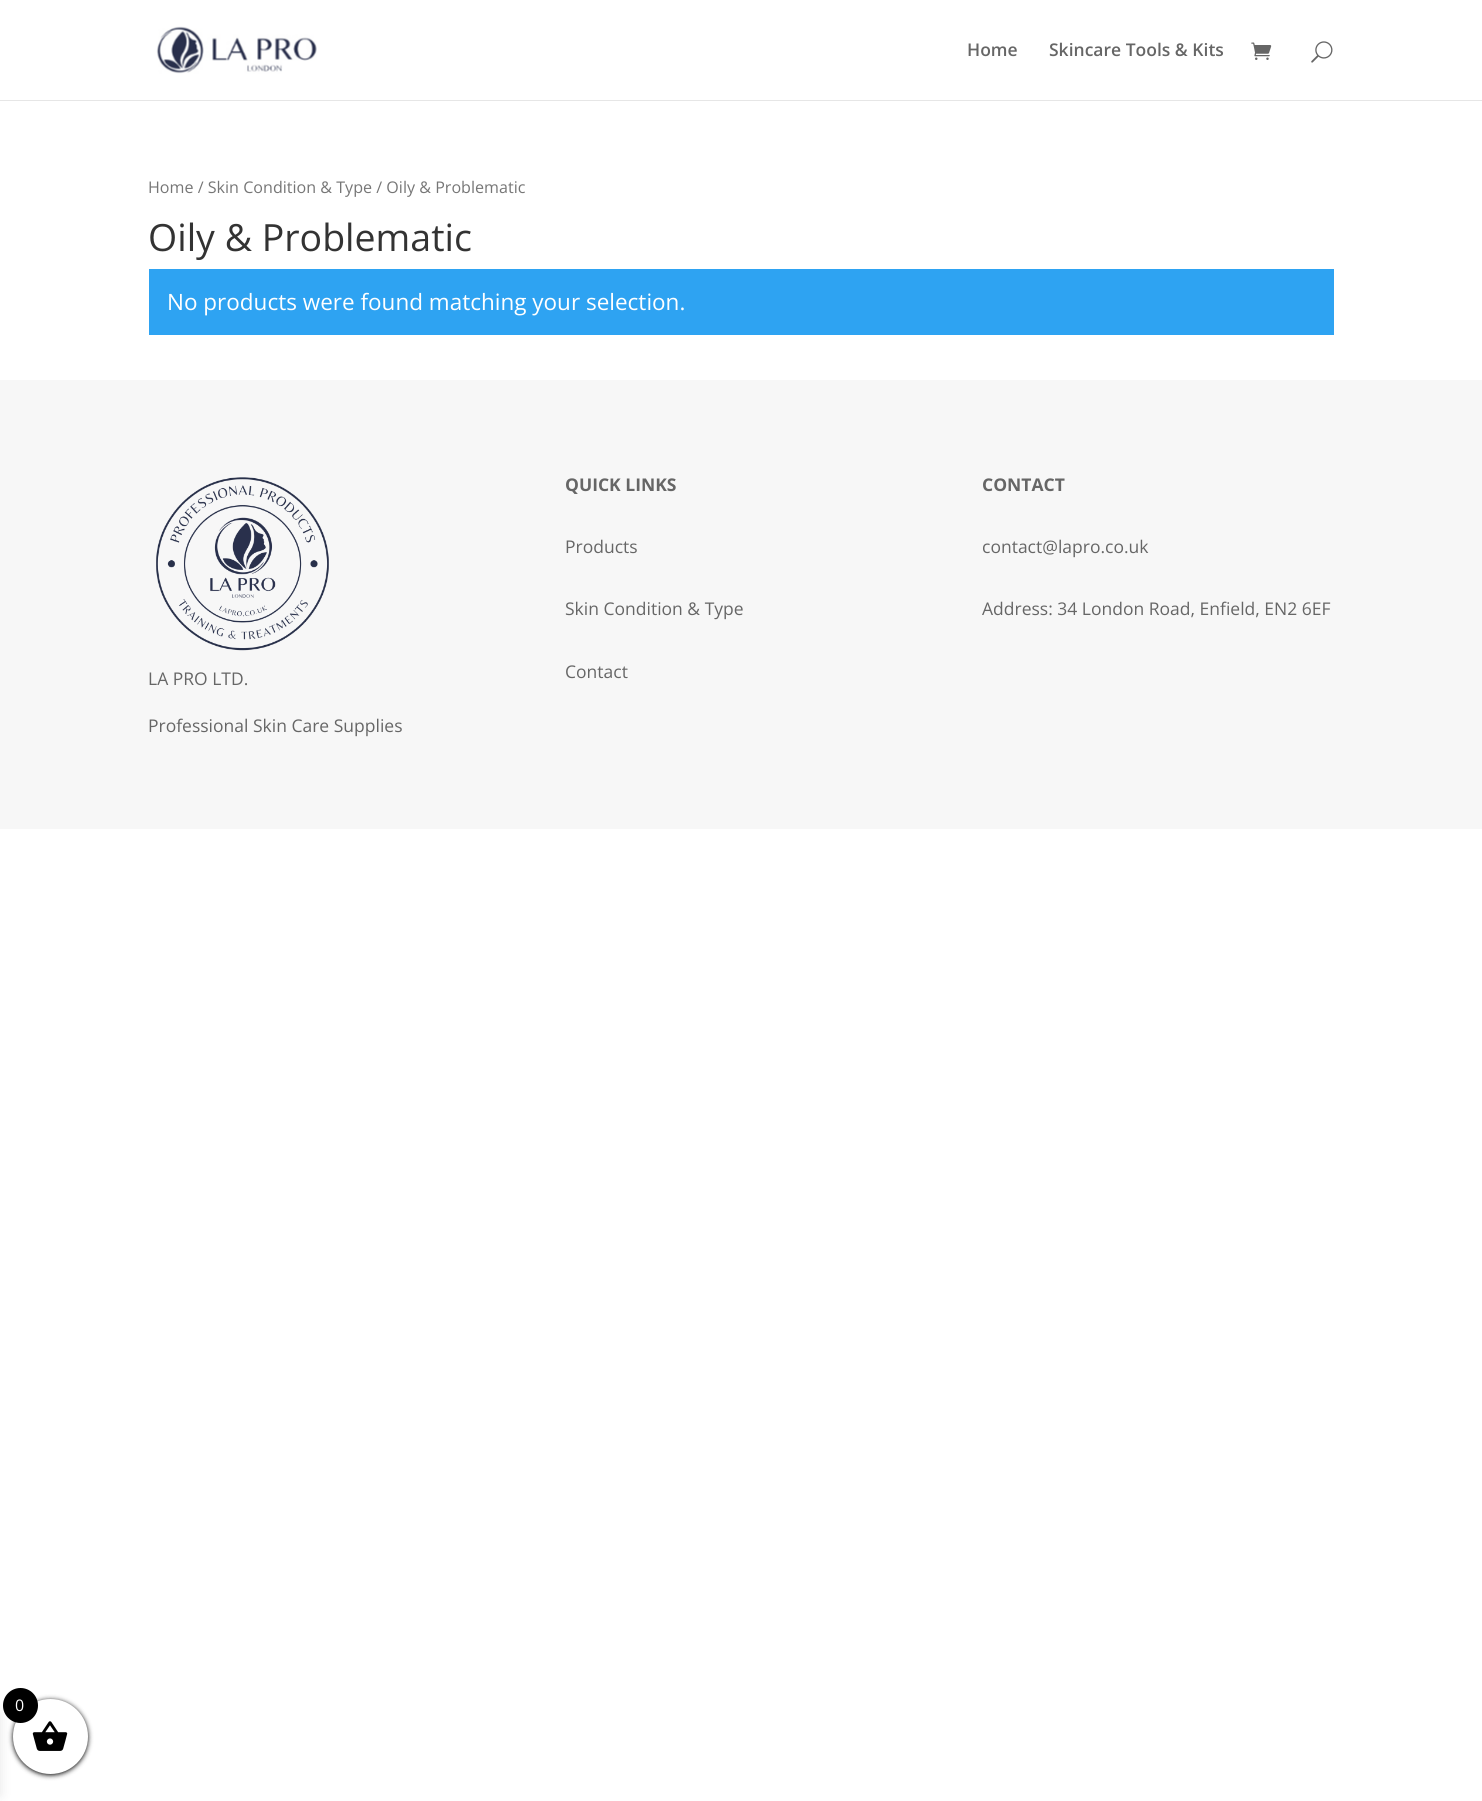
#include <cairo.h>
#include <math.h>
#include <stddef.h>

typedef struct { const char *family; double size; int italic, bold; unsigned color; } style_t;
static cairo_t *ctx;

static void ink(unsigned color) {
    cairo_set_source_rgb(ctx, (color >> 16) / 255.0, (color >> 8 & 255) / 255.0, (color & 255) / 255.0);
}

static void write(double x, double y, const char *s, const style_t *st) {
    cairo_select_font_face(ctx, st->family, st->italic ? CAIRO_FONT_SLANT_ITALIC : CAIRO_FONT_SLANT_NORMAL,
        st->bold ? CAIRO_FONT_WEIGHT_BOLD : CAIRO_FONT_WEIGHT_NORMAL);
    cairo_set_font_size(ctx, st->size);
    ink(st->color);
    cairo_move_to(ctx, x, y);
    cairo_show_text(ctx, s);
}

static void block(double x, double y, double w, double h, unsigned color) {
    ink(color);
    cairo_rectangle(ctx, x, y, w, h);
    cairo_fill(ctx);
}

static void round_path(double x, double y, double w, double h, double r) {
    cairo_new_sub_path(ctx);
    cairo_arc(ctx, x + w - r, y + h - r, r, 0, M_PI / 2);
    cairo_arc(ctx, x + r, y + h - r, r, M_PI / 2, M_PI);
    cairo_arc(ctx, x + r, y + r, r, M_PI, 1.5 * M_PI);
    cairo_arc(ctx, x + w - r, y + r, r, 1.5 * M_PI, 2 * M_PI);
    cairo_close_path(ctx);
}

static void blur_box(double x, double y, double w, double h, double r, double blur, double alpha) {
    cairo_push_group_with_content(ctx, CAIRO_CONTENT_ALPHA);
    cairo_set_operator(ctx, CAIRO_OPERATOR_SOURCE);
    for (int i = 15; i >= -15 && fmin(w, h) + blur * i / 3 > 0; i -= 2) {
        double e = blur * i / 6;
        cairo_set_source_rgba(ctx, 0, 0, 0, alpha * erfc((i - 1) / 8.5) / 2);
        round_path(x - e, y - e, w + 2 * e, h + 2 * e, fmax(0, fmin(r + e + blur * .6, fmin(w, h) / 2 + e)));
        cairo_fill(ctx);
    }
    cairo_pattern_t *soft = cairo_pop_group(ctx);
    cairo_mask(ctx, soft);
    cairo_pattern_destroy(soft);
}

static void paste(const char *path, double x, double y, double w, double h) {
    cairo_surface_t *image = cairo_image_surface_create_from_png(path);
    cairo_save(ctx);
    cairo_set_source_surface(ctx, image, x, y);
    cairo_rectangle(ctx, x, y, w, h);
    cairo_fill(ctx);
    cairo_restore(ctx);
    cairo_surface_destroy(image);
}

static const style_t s1 = {"Open Sans SemiBold", 17.5, 0, 0, 0x666666};
static const style_t s2 = {"Open Sans", 16.1, 0, 0, 0x767676};
static const style_t s3 = {"Open Sans", 37.5, 0, 0, 0x333333};
static const style_t s4 = {"Open Sans", 22.5, 0, 0, 0xffffff};
static const style_t s5 = {"Open Sans", 17.5, 0, 1, 0x666666};
static const style_t s6 = {"Open Sans", 17.5, 0, 0, 0x666666};
static const style_t s7 = {"Open Sans", 16, 0, 0, 0xffffff};

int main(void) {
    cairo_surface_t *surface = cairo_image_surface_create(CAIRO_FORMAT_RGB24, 1482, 1801);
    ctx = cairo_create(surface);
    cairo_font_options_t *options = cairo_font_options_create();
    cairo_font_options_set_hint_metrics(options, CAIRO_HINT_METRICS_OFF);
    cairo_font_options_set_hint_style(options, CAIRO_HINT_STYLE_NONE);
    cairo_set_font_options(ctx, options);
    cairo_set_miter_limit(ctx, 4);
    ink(0xffffff);
    cairo_paint(ctx);
    ink(0xe6e6e6);
    cairo_new_path(ctx);
    cairo_move_to(ctx, 0, 100);
    cairo_line_to(ctx, 0, 101);
    cairo_line_to(ctx, 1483, 101);
    cairo_line_to(ctx, 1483, 1);
    cairo_line_to(ctx, 1482, 1);
    cairo_line_to(ctx, 1482, 100);
    cairo_close_path(ctx);
    cairo_fill(ctx);
    paste("pic1.png", 156, 26, 161, 48);
    write(967, 56, "Home", &s1);
    write(1049, 56, "Skincare Tools & Kits", &s1);
    paste("pic2.png", 1251, 42, 21, 18);
    paste("pic3.png", 1311, 41, 22, 22);
    write(148, 193, "Home / Skin Condition & Type / Oily & Problematic", &s2);
    write(148, 251, "Oily & Problematic", &s3);
    block(149, 269, 1185, 66, 0x2ea3f2);
    write(167, 310, "No products were found matching your selection.", &s4);
    block(0, 380, 1482, 449, 0xf7f7f7);
    write(565, 491, "QUICK LINKS", &s5);
    write(565, 553, "Products", &s6);
    write(565, 615, "Skin Condition & Type", &s6);
    write(565, 678, "Contact", &s6);
    write(982, 491, "CONTACT", &s5);
    write(982, 553, "contact@lapro.co.uk", &s6);
    write(982, 615, "Address: 34 London Road, Enfield, EN2 6EF", &s6);
    paste("pic4.png", 156, 477, 173, 174);
    write(148, 685, "LA PRO LTD.", &s6);
    write(148, 732, "Professional Skin Care Supplies", &s6);
    ink(0x000000);
    blur_box(-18, 1714, 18, 81, 0, 6, 0.1);
    blur_box(13, 1700, 75, 75, 37.5, 2.5, 1);
    ink(0xffffff);
    cairo_arc(ctx, 50.5, 1736.5, 37.5, 0, 2 * M_PI);
    cairo_fill(ctx);
    paste("pic5.png", 32, 1721, 36, 30);
    ink(0x000000);
    cairo_arc(ctx, 20.5, 1705.5, 17.5, 0, 2 * M_PI);
    cairo_fill(ctx);
    write(15, 1711, "0", &s7);
    cairo_surface_write_to_png(surface, "screenshot.png");
    cairo_font_options_destroy(options);
    cairo_destroy(ctx);
    cairo_surface_destroy(surface);
    return 0;
}
